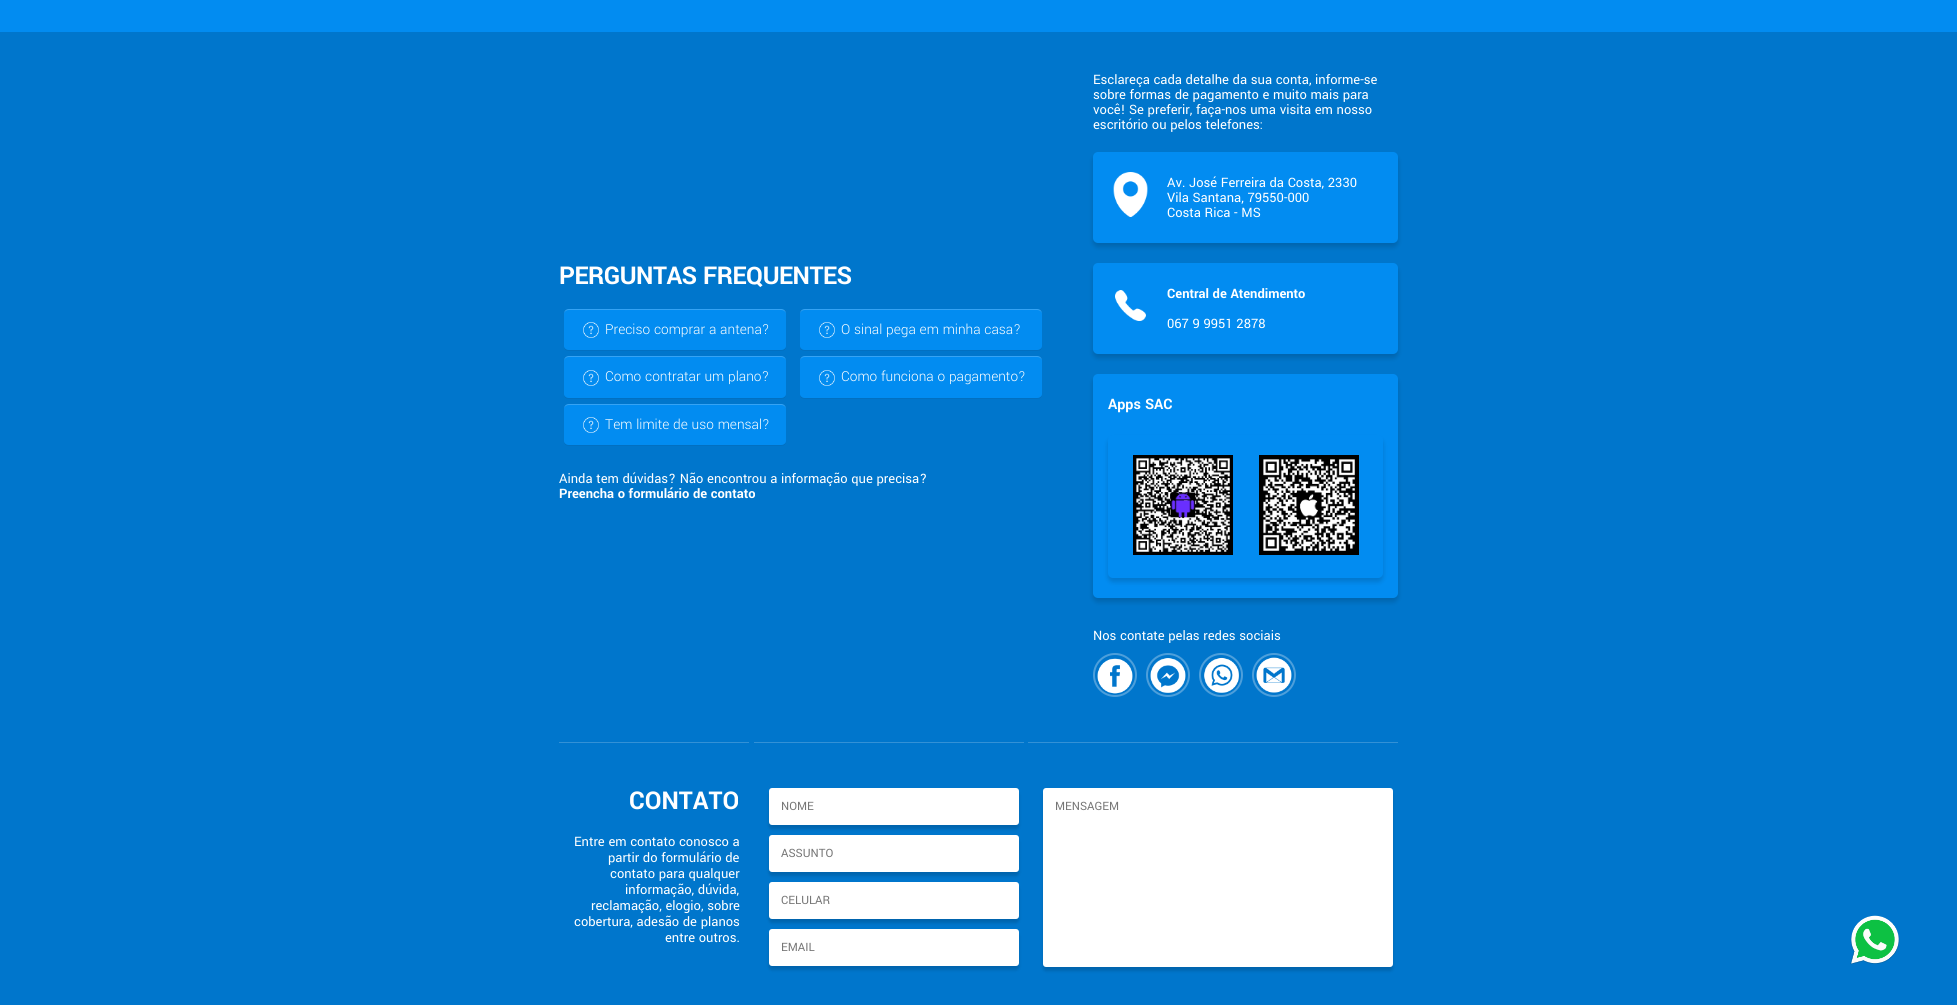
#include <cairo.h>
#include <math.h>
#include <stddef.h>

typedef struct { const char *family; double size; int italic, bold; unsigned color; } style_t;
static cairo_t *ctx;

static void ink(unsigned color) {
    cairo_set_source_rgb(ctx, (color >> 16) / 255.0, (color >> 8 & 255) / 255.0, (color & 255) / 255.0);
}

static void write(double x, double y, const char *s, const style_t *st) {
    cairo_select_font_face(ctx, st->family, st->italic ? CAIRO_FONT_SLANT_ITALIC : CAIRO_FONT_SLANT_NORMAL,
        st->bold ? CAIRO_FONT_WEIGHT_BOLD : CAIRO_FONT_WEIGHT_NORMAL);
    cairo_set_font_size(ctx, st->size);
    ink(st->color);
    cairo_move_to(ctx, x, y);
    cairo_show_text(ctx, s);
}

static void write_spaced(double x, double y, const char *s, double letter, double word) {
    cairo_move_to(ctx, x, y);
    while (*s) {
        char ch[5] = {0};
        int n = 0;
        do ch[n++] = *s++; while ((*s & 0xC0) == 0x80);
        cairo_show_text(ctx, ch);
        cairo_rel_move_to(ctx, letter + word * (*ch == ' '), 0);
    }
}

static void block(double x, double y, double w, double h, unsigned color) {
    ink(color);
    cairo_rectangle(ctx, x, y, w, h);
    cairo_fill(ctx);
}

static void round_path(double x, double y, double w, double h, double r) {
    cairo_new_sub_path(ctx);
    cairo_arc(ctx, x + w - r, y + h - r, r, 0, M_PI / 2);
    cairo_arc(ctx, x + r, y + h - r, r, M_PI / 2, M_PI);
    cairo_arc(ctx, x + r, y + r, r, M_PI, 1.5 * M_PI);
    cairo_arc(ctx, x + w - r, y + r, r, 1.5 * M_PI, 2 * M_PI);
    cairo_close_path(ctx);
}

static void blur_box(double x, double y, double w, double h, double r, double blur, double alpha) {
    cairo_push_group_with_content(ctx, CAIRO_CONTENT_ALPHA);
    cairo_set_operator(ctx, CAIRO_OPERATOR_SOURCE);
    for (int i = 15; i >= -15 && fmin(w, h) + blur * i / 3 > 0; i -= 2) {
        double e = blur * i / 6;
        cairo_set_source_rgba(ctx, 0, 0, 0, alpha * erfc((i - 1) / 8.5) / 2);
        round_path(x - e, y - e, w + 2 * e, h + 2 * e, fmax(0, fmin(r + e + blur * .6, fmin(w, h) / 2 + e)));
        cairo_fill(ctx);
    }
    cairo_pattern_t *soft = cairo_pop_group(ctx);
    cairo_mask(ctx, soft);
    cairo_pattern_destroy(soft);
}

static void paste(const char *path, double x, double y, double w, double h) {
    cairo_surface_t *image = cairo_image_surface_create_from_png(path);
    cairo_save(ctx);
    cairo_set_source_surface(ctx, image, x, y);
    cairo_rectangle(ctx, x, y, w, h);
    cairo_fill(ctx);
    cairo_restore(ctx);
    cairo_surface_destroy(image);
}

static const style_t s1 = {"Yantramanav Light", 15.25, 0, 0, 0xffffff};
static const style_t s2 = {"Yantramanav", 14.4, 0, 0, 0xffffff};
static const style_t s3 = {"Yantramanav", 14.4, 0, 1, 0xffffff};
static const style_t s4 = {"Yantramanav", 16, 0, 1, 0xffffff};
static const style_t s5 = {"Yantramanav", 27.25, 0, 1, 0xffffff};
static const style_t s6 = {"Yantramanav", 12.75, 0, 0, 0x757575};

int main(void) {
    cairo_surface_t *surface = cairo_image_surface_create(CAIRO_FORMAT_RGB24, 1957, 1005);
    ctx = cairo_create(surface);
    cairo_font_options_t *options = cairo_font_options_create();
    cairo_font_options_set_hint_metrics(options, CAIRO_HINT_METRICS_OFF);
    cairo_font_options_set_hint_style(options, CAIRO_HINT_STYLE_NONE);
    cairo_set_font_options(ctx, options);
    cairo_set_miter_limit(ctx, 4);
    ink(0x028cf1);
    cairo_paint(ctx);
    block(0, 32, 1957, 973, 0x0076cc);
    cairo_select_font_face(ctx, "Yantramanav", CAIRO_FONT_SLANT_NORMAL, CAIRO_FONT_WEIGHT_BOLD);
    cairo_set_font_size(ctx, 27.25);
    ink(0xffffff);
    write_spaced(559, 284, "PERGUNTAS FREQUENTES", -0.5, 0);
    ink(0x028cf1);
    round_path(564, 309, 222, 42, 5);
    cairo_fill(ctx);
    cairo_set_source_rgba(ctx, 1, 1, 1, 0.2);
    cairo_new_path(ctx);
    cairo_move_to(ctx, 569, 309);
    cairo_curve_to(ctx, 566, 309, 564, 311, 564, 314);
    cairo_curve_to(ctx, 564, 312, 566, 310, 569, 310);
    cairo_line_to(ctx, 781, 310);
    cairo_curve_to(ctx, 784, 310, 786, 312, 786, 314);
    cairo_curve_to(ctx, 786, 311, 784, 309, 781, 309);
    cairo_close_path(ctx);
    cairo_fill(ctx);
    cairo_set_source_rgba(ctx, 0, 0, 0, 0.2);
    cairo_new_path(ctx);
    cairo_move_to(ctx, 781, 351);
    cairo_curve_to(ctx, 784, 351, 786, 349, 786, 346);
    cairo_curve_to(ctx, 786, 348, 784, 350, 781, 350);
    cairo_line_to(ctx, 569, 350);
    cairo_curve_to(ctx, 566, 350, 564, 348, 564, 346);
    cairo_curve_to(ctx, 564, 349, 566, 351, 569, 351);
    cairo_close_path(ctx);
    cairo_fill(ctx);
    paste("pic1.png", 583, 322, 16, 16);
    write(605, 334, "Preciso comprar a antena?", &s1);
    ink(0x028cf1);
    round_path(564, 356, 222, 43, 5);
    cairo_fill(ctx);
    cairo_set_source_rgba(ctx, 1, 1, 1, 0.2);
    cairo_new_path(ctx);
    cairo_move_to(ctx, 569, 356);
    cairo_curve_to(ctx, 566, 356, 564, 358, 564, 361);
    cairo_curve_to(ctx, 564, 359, 566, 357, 569, 357);
    cairo_line_to(ctx, 781, 357);
    cairo_curve_to(ctx, 784, 357, 786, 359, 786, 361);
    cairo_curve_to(ctx, 786, 358, 784, 356, 781, 356);
    cairo_close_path(ctx);
    cairo_fill(ctx);
    cairo_set_source_rgba(ctx, 0, 0, 0, 0.2);
    cairo_new_path(ctx);
    cairo_move_to(ctx, 781, 399);
    cairo_curve_to(ctx, 784, 399, 786, 397, 786, 394);
    cairo_curve_to(ctx, 786, 396, 784, 398, 781, 398);
    cairo_line_to(ctx, 569, 398);
    cairo_curve_to(ctx, 566, 398, 564, 396, 564, 394);
    cairo_curve_to(ctx, 564, 397, 566, 399, 569, 399);
    cairo_close_path(ctx);
    cairo_fill(ctx);
    paste("pic1.png", 583, 370, 16, 16);
    write(605, 381, "Como contratar um plano?", &s1);
    ink(0x028cf1);
    round_path(564, 404, 222, 42, 5);
    cairo_fill(ctx);
    cairo_set_source_rgba(ctx, 1, 1, 1, 0.2);
    cairo_new_path(ctx);
    cairo_move_to(ctx, 569, 404);
    cairo_curve_to(ctx, 566, 404, 564, 406, 564, 409);
    cairo_curve_to(ctx, 564, 407, 566, 405, 569, 405);
    cairo_line_to(ctx, 781, 405);
    cairo_curve_to(ctx, 784, 405, 786, 407, 786, 409);
    cairo_curve_to(ctx, 786, 406, 784, 404, 781, 404);
    cairo_close_path(ctx);
    cairo_fill(ctx);
    cairo_set_source_rgba(ctx, 0, 0, 0, 0.2);
    cairo_new_path(ctx);
    cairo_move_to(ctx, 781, 446);
    cairo_curve_to(ctx, 784, 446, 786, 444, 786, 441);
    cairo_curve_to(ctx, 786, 443, 784, 445, 781, 445);
    cairo_line_to(ctx, 569, 445);
    cairo_curve_to(ctx, 566, 445, 564, 443, 564, 441);
    cairo_curve_to(ctx, 564, 444, 566, 446, 569, 446);
    cairo_close_path(ctx);
    cairo_fill(ctx);
    paste("pic1.png", 583, 417, 16, 16);
    write(605, 429, "Tem limite de uso mensal?", &s1);
    ink(0x028cf1);
    round_path(800, 309, 242, 42, 5);
    cairo_fill(ctx);
    cairo_set_source_rgba(ctx, 1, 1, 1, 0.2);
    cairo_new_path(ctx);
    cairo_move_to(ctx, 805, 309);
    cairo_curve_to(ctx, 802, 309, 800, 311, 800, 314);
    cairo_curve_to(ctx, 800, 312, 802, 310, 805, 310);
    cairo_line_to(ctx, 1037, 310);
    cairo_curve_to(ctx, 1040, 310, 1042, 312, 1042, 314);
    cairo_curve_to(ctx, 1042, 311, 1040, 309, 1037, 309);
    cairo_close_path(ctx);
    cairo_fill(ctx);
    cairo_set_source_rgba(ctx, 0, 0, 0, 0.2);
    cairo_new_path(ctx);
    cairo_move_to(ctx, 1037, 351);
    cairo_curve_to(ctx, 1040, 351, 1042, 349, 1042, 346);
    cairo_curve_to(ctx, 1042, 348, 1040, 350, 1037, 350);
    cairo_line_to(ctx, 805, 350);
    cairo_curve_to(ctx, 802, 350, 800, 348, 800, 346);
    cairo_curve_to(ctx, 800, 349, 802, 351, 805, 351);
    cairo_close_path(ctx);
    cairo_fill(ctx);
    paste("pic1.png", 819, 322, 16, 16);
    write(841, 334, "O sinal pega em minha casa?", &s1);
    ink(0x028cf1);
    round_path(800, 356, 242, 43, 5);
    cairo_fill(ctx);
    cairo_set_source_rgba(ctx, 1, 1, 1, 0.2);
    cairo_new_path(ctx);
    cairo_move_to(ctx, 805, 356);
    cairo_curve_to(ctx, 802, 356, 800, 358, 800, 361);
    cairo_curve_to(ctx, 800, 359, 802, 357, 805, 357);
    cairo_line_to(ctx, 1037, 357);
    cairo_curve_to(ctx, 1040, 357, 1042, 359, 1042, 361);
    cairo_curve_to(ctx, 1042, 358, 1040, 356, 1037, 356);
    cairo_close_path(ctx);
    cairo_fill(ctx);
    cairo_set_source_rgba(ctx, 0, 0, 0, 0.2);
    cairo_new_path(ctx);
    cairo_move_to(ctx, 1037, 399);
    cairo_curve_to(ctx, 1040, 399, 1042, 397, 1042, 394);
    cairo_curve_to(ctx, 1042, 396, 1040, 398, 1037, 398);
    cairo_line_to(ctx, 805, 398);
    cairo_curve_to(ctx, 802, 398, 800, 396, 800, 394);
    cairo_curve_to(ctx, 800, 397, 802, 399, 805, 399);
    cairo_close_path(ctx);
    cairo_fill(ctx);
    paste("pic1.png", 819, 370, 16, 16);
    write(841, 381, "Como funciona o pagamento?", &s1);
    write(559, 483, "Ainda tem dúvidas? Não encontrou a informação que precisa?", &s2);
    write(559, 498, "Preencha o formulário de contato", &s3);
    write(1093, 84, "Esclareça cada detalhe da sua conta, informe-se", &s2);
    write(1093, 99, "sobre formas de pagamento e muito mais para", &s2);
    write(1093, 114, "você! Se preferir, faça-nos uma visita em nosso", &s2);
    write(1093, 129, "escritório ou pelos telefones:", &s2);
    ink(0x000000);
    blur_box(1093, 156, 305, 91, 5, 2.5, 0.15);
    ink(0x028cf1);
    round_path(1093, 152, 305, 91, 5);
    cairo_fill(ctx);
    paste("pic2.png", 1113, 172, 35, 45);
    write(1167, 187, "Av. José Ferreira da Costa, 2330", &s2);
    write(1167, 202, "Vila Santana, 79550-000", &s2);
    write(1167, 217, "Costa Rica - MS", &s2);
    ink(0x000000);
    blur_box(1093, 267, 305, 91, 5, 2.5, 0.15);
    ink(0x028cf1);
    round_path(1093, 263, 305, 91, 5);
    cairo_fill(ctx);
    paste("pic3.png", 1115, 290, 31, 31);
    write(1167, 298, "Central de Atendimento", &s3);
    write(1167, 328, "067 9 9951 2878", &s2);
    ink(0x000000);
    blur_box(1093, 378, 305, 224, 5, 2.5, 0.15);
    ink(0x028cf1);
    round_path(1093, 374, 305, 224, 5);
    cairo_fill(ctx);
    write(1108, 409, "Apps SAC", &s4);
    ink(0x000000);
    blur_box(1108, 439, 275, 143, 5, 2.5, 0.15);
    ink(0x028cf1);
    round_path(1108, 435, 275, 143, 5);
    cairo_fill(ctx);
    paste("pic4.png", 1133, 455, 100, 100);
    paste("pic5.png", 1259, 455, 100, 100);
    write(1093, 640, "Nos contate pelas redes sociais", &s2);
    cairo_new_path(ctx);
    cairo_arc(ctx, 1115, 675, 21, 0, 2 * M_PI);
    ink(0x4d9fdb);
    cairo_stroke(ctx);
    paste("pic6.png", 1097, 658, 36, 36);
    cairo_arc(ctx, 1168, 675, 21, 0, 2 * M_PI);
    cairo_stroke(ctx);
    paste("pic7.png", 1150, 658, 36, 35);
    cairo_arc(ctx, 1221, 675, 21, 0, 2 * M_PI);
    cairo_stroke(ctx);
    paste("pic8.png", 1204, 657, 35, 36);
    cairo_arc(ctx, 1274, 675, 21, 0, 2 * M_PI);
    cairo_stroke(ctx);
    paste("pic9.png", 1256, 657, 36, 36);
    block(559, 742, 190, 1, 0x3391d6);
    write(629, 809, "CONTATO", &s5);
    write(574, 846, "Entre em contato conosco a", &s2);
    write(608, 862, "partir do formulário de", &s2);
    write(610, 878, "contato para qualquer", &s2);
    write(625, 894, "informação, dúvida,", &s2);
    write(591, 910, "reclamação, elogio, sobre", &s2);
    write(574, 926, "cobertura, adesão de planos", &s2);
    write(665, 942, "entre outros.", &s2);
    block(754, 742, 270, 1, 0x3391d6);
    ink(0x000000);
    blur_box(769, 792, 250, 37, 3, 1.5, 0.15);
    ink(0xffffff);
    round_path(769, 788, 250, 37, 3);
    cairo_fill(ctx);
    write(781, 810, "NOME", &s6);
    ink(0x000000);
    blur_box(769, 839, 250, 37, 3, 1.5, 0.15);
    ink(0xffffff);
    round_path(769, 835, 250, 37, 3);
    cairo_fill(ctx);
    write(781, 857, "ASSUNTO", &s6);
    ink(0x000000);
    blur_box(769, 886, 250, 37, 3, 1.5, 0.15);
    ink(0xffffff);
    round_path(769, 882, 250, 37, 3);
    cairo_fill(ctx);
    write(781, 904, "CELULAR", &s6);
    ink(0x000000);
    blur_box(769, 933, 250, 37, 3, 1.5, 0.15);
    ink(0xffffff);
    round_path(769, 929, 250, 37, 3);
    cairo_fill(ctx);
    write(781, 951, "EMAIL", &s6);
    block(1028, 742, 370, 1, 0x3391d6);
    ink(0x000000);
    blur_box(1043, 792, 350, 179, 3, 1.5, 0.15);
    ink(0xffffff);
    round_path(1043, 788, 350, 179, 3);
    cairo_fill(ctx);
    write(1055, 810, "MENSAGEM", &s6);
    paste("pic10.png", 1850, 915, 50, 50);
    cairo_surface_write_to_png(surface, "screenshot.png");
    cairo_font_options_destroy(options);
    cairo_destroy(ctx);
    cairo_surface_destroy(surface);
    return 0;
}
